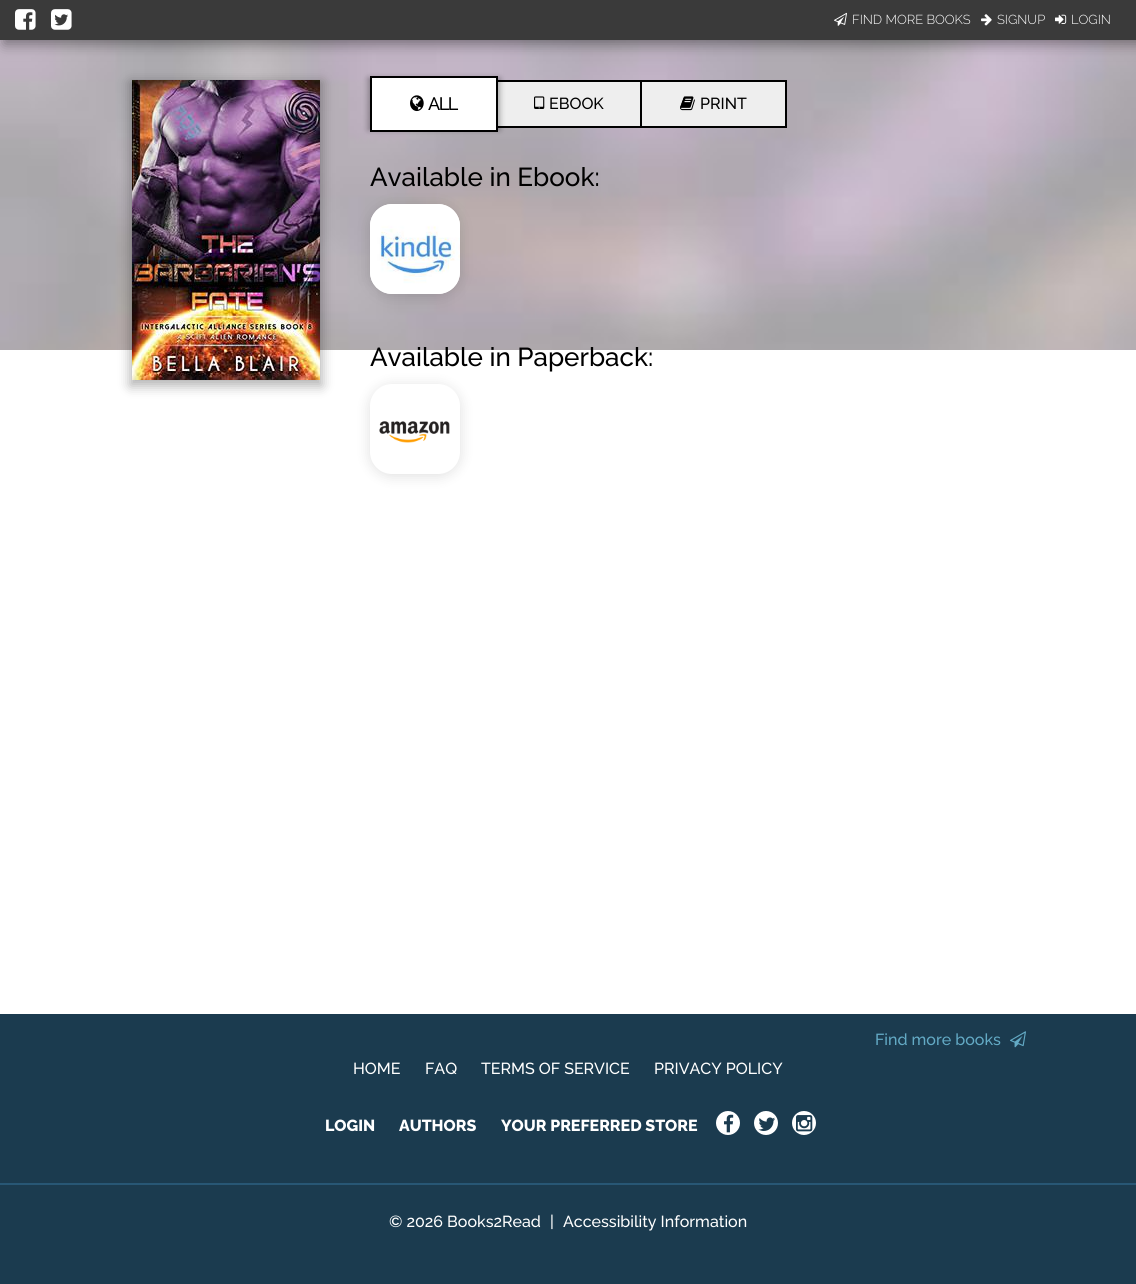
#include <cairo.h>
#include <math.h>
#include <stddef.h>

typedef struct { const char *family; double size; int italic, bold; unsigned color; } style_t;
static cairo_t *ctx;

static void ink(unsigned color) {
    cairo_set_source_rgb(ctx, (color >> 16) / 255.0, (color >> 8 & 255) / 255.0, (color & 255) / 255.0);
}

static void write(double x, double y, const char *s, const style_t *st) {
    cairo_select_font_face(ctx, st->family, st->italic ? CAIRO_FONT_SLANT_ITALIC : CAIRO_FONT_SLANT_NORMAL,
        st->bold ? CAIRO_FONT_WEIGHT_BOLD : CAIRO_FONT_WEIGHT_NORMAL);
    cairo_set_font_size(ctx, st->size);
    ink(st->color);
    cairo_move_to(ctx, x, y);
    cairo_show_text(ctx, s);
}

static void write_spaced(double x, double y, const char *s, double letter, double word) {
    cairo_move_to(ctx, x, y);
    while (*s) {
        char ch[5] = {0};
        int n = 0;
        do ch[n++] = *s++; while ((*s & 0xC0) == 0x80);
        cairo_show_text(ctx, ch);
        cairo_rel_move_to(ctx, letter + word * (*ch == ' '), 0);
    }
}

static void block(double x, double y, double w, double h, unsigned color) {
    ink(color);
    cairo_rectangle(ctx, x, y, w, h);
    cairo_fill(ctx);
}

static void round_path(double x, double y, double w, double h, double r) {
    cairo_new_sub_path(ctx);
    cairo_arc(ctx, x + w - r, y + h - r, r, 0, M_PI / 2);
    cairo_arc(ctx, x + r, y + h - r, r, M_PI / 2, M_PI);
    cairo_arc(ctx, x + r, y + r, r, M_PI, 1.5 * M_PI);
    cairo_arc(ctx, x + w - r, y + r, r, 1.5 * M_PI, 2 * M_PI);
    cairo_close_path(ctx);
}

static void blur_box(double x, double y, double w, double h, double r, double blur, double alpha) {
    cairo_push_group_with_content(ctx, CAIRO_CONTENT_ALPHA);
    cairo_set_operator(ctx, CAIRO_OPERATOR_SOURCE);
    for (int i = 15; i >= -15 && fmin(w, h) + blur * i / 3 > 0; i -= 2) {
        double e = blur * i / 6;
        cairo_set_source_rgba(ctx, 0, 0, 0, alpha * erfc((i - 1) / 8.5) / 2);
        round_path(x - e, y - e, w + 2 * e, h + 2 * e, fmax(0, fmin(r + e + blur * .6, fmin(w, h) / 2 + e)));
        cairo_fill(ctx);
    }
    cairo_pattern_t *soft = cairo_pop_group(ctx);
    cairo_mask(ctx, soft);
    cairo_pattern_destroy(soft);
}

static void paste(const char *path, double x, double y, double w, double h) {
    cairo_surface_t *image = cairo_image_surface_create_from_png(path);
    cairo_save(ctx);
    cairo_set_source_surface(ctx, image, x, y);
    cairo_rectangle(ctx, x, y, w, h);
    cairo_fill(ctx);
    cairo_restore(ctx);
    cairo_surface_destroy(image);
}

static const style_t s1 = {"Raleway Light", 13, 0, 0, 0xffffff};
static const style_t s2 = {"Raleway Medium", 16, 0, 0, 0x000000};
static const style_t s3 = {"Raleway Medium", 26, 0, 0, 0x000000};
static const style_t s4 = {"Raleway Medium", 16, 0, 0, 0x63aac5};
static const style_t s5 = {"Raleway Medium", 16, 0, 0, 0xffffff};
static const style_t s6 = {"Raleway ExtraBold", 16, 0, 0, 0xffffff};

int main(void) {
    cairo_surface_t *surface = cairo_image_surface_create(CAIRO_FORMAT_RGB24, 1136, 1284);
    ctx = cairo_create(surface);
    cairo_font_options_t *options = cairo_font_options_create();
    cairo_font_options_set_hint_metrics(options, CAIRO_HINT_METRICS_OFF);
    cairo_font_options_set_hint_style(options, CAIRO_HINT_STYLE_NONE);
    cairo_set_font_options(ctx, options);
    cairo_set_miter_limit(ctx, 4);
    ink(0xffffff);
    cairo_paint(ctx);
    paste("pic1.png", 0, 40, 1136, 310);
    ink(0x000000);
    blur_box(4, 4, 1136, 40, 0, 7, 0.4);
    block(0, 0, 1136, 40, 0x3a3a3a);
    paste("pic2.png", 15, 9, 21, 21);
    paste("pic3.png", 51, 9, 21, 21);
    paste("pic4.png", 834, 12, 13, 14);
    write(852, 24, "FIND MORE BOOKS", &s1);
    paste("pic5.png", 981, 14, 11, 12);
    write(997, 24, "SIGNUP", &s1);
    paste("pic6.png", 1055, 14, 12, 10);
    write(1071, 24, "LOGIN", &s1);
    ink(0x000000);
    blur_box(130, 82, 192, 304, 0, 6, 0.3);
    paste("pic7.png", 132, 80, 188, 300);
    block(498, 82, 142, 44, 0xeeeeee);
    cairo_rectangle(ctx, 495, 81, 148, 46);
    ink(0x000000);
    cairo_stroke(ctx);
    ink(0x000000);
    blur_box(368, 78, 132, 52, 0, 3, 0.3);
    ink(0xffffff);
    cairo_rectangle(ctx, 371, 77, 126, 54);
    cairo_fill_preserve(ctx);
    ink(0x000000);
    cairo_stroke(ctx);
    paste("pic8.png", 410, 95, 14, 17);
    cairo_select_font_face(ctx, "Raleway Medium", CAIRO_FONT_SLANT_NORMAL, CAIRO_FONT_WEIGHT_NORMAL);
    cairo_set_font_size(ctx, 18);
    write_spaced(428, 110, "ALL", -1.5, 0);
    paste("pic9.png", 534, 96, 11, 13);
    write(549, 109, "EBOOK", &s2);
    ink(0xeeeeee);
    cairo_rectangle(ctx, 641, 81, 145, 46);
    cairo_fill_preserve(ctx);
    ink(0x000000);
    cairo_stroke(ctx);
    paste("pic10.png", 680, 96, 15, 15);
    write(700, 109, "PRINT", &s2);
    ink(0x000000);
    blur_box(368, 204, 94, 94, 24, 6, 0.1);
    write(370, 186, "Available in Ebook:", &s3);
    ink(0xffffff);
    round_path(370, 204, 90, 90, 22);
    cairo_fill(ctx);
    paste("pic11.png", 370, 204, 90, 90);
    ink(0x000000);
    blur_box(368, 384, 94, 94, 24, 6, 0.1);
    write(370, 366, "Available in Paperback:", &s3);
    ink(0xffffff);
    round_path(370, 384, 90, 90, 22);
    cairo_fill(ctx);
    paste("pic12.png", 379, 421, 71, 22);
    block(0, 1014, 1136, 270, 0x1b3b4f);
    write(875, 1045, "Find more books", &s4);
    paste("pic13.png", 1010, 1031, 16, 17);
    write(353, 1074, "HOME", &s5);
    write(425, 1074, "FAQ", &s5);
    write(481, 1074, "TERMS OF SERVICE", &s5);
    write(654, 1074, "PRIVACY POLICY", &s5);
    write(325, 1131, "LOGIN", &s6);
    write(399, 1131, "AUTHORS", &s6);
    write(501, 1131, "YOUR PREFERRED STORE", &s6);
    cairo_new_path(ctx);
    cairo_arc(ctx, 728, 1123, 12, 0, 2 * M_PI);
    cairo_fill(ctx);
    paste("pic14.png", 724, 1114, 10, 19);
    cairo_arc(ctx, 766, 1123, 12, 0, 2 * M_PI);
    cairo_fill(ctx);
    paste("pic15.png", 758, 1117, 17, 14);
    cairo_arc(ctx, 804, 1123, 12, 0, 2 * M_PI);
    cairo_fill(ctx);
    paste("pic16.png", 796, 1115, 17, 17);
    block(0, 1183, 1136, 2, 0x285775);
    write(389, 1227, "© 2026 Books2Read", &s5);
    write(550, 1227, "|", &s5);
    write(563, 1227, "Accessibility Information", &s5);
    cairo_surface_write_to_png(surface, "screenshot.png");
    cairo_font_options_destroy(options);
    cairo_destroy(ctx);
    cairo_surface_destroy(surface);
    return 0;
}
